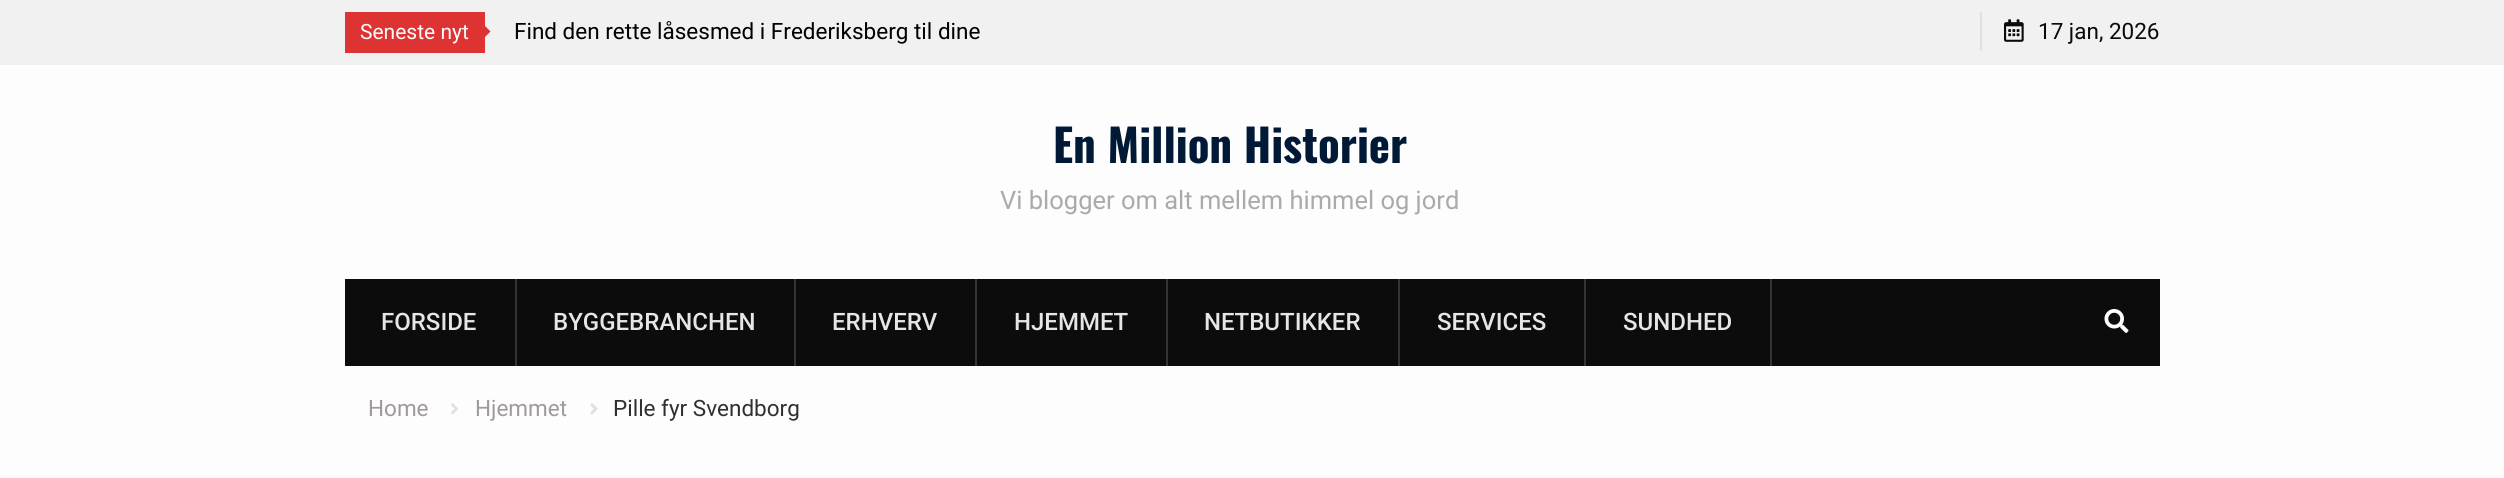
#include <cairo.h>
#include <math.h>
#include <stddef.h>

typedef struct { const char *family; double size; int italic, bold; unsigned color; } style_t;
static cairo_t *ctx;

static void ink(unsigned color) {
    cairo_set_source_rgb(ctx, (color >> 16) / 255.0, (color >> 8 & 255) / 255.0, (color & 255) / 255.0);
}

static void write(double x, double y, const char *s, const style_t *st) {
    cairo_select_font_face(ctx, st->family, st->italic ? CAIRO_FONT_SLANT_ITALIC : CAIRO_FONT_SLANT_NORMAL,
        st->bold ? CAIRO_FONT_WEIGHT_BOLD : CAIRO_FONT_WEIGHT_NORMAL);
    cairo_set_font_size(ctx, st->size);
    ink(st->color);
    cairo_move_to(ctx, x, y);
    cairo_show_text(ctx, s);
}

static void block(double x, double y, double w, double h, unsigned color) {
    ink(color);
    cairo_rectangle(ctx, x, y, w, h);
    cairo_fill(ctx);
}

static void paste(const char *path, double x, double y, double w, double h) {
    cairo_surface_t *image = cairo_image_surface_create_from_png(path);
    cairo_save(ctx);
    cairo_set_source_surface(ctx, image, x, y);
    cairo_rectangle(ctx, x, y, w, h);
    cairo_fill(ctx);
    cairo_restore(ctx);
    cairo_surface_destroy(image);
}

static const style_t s1 = {"Roboto", 21, 0, 0, 0xfdfdfd};
static const style_t s2 = {"Roboto", 22.5, 0, 0, 0x000000};
static const style_t s3 = {"Roboto", 22.5, 0, 0, 0x0a0a0a};
static const style_t s4 = {"Oswald", 45, 0, 1, 0x001936};
static const style_t s5 = {"Roboto", 25.5, 0, 0, 0xaaaaaa};
static const style_t s6 = {"Roboto Medium", 24, 0, 0, 0xe6e6e6};
static const style_t s7 = {"Roboto", 22.5, 0, 0, 0xa29a9a};
static const style_t s8 = {"Roboto", 22.5, 0, 0, 0x303030};

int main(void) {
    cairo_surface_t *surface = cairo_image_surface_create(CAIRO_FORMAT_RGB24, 2504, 478);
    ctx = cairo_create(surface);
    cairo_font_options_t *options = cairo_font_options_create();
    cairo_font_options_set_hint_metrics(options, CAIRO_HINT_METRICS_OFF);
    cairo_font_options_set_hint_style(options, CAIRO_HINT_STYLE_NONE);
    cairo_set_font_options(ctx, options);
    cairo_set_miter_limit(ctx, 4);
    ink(0xfdfdfd);
    cairo_paint(ctx);
    block(0, 0, 2504, 65, 0xf1f1f1);
    block(345, 12, 140, 41, 0xdd3333);
    write(360, 39, "Seneste nyt", &s1);
    ink(0xdd3333);
    cairo_new_path(ctx);
    cairo_move_to(ctx, 475.5, 46.5);
    cairo_line_to(ctx, 475.5, 16.5);
    cairo_line_to(ctx, 490.5, 31.5);
    cairo_close_path(ctx);
    cairo_fill(ctx);
    write(514, 39, "Find den rette låsesmed i Frederiksberg til dine", &s2);
    block(1980, 12, 2, 39, 0xe0e0e0);
    paste("pic1.png", 2004, 19, 20, 23);
    write(2038, 39, "17 jan, 2026", &s3);
    write(1053, 163, "En Million Historier", &s4);
    write(1000, 209, "Vi blogger om alt mellem himmel og jord", &s5);
    block(345, 279, 1815, 87, 0x0c0c0c);
    block(515, 279, 2, 87, 0x343434);
    write(381, 330, "FORSIDE", &s6);
    block(794, 279, 2, 87, 0x343434);
    write(553, 330, "BYGGEBRANCHEN", &s6);
    block(975, 279, 2, 87, 0x343434);
    write(832, 330, "ERHVERV", &s6);
    block(1166, 279, 2, 87, 0x343434);
    write(1014, 330, "HJEMMET", &s6);
    block(1398, 279, 2, 87, 0x343434);
    write(1204, 330, "NETBUTIKKER", &s6);
    block(1584, 279, 2, 87, 0x343434);
    write(1437, 330, "SERVICES", &s6);
    block(1770, 279, 2, 87, 0x343434);
    write(1623, 330, "SUNDHED", &s6);
    paste("pic2.png", 2104, 309, 25, 24);
    write(368, 416, "Home", &s7);
    paste("pic3.png", 451, 403, 7, 12);
    write(475, 416, "Hjemmet", &s7);
    paste("pic4.png", 590, 403, 8, 12);
    write(613, 416, "Pille fyr Svendborg", &s8);
    cairo_surface_write_to_png(surface, "screenshot.png");
    cairo_font_options_destroy(options);
    cairo_destroy(ctx);
    cairo_surface_destroy(surface);
    return 0;
}
